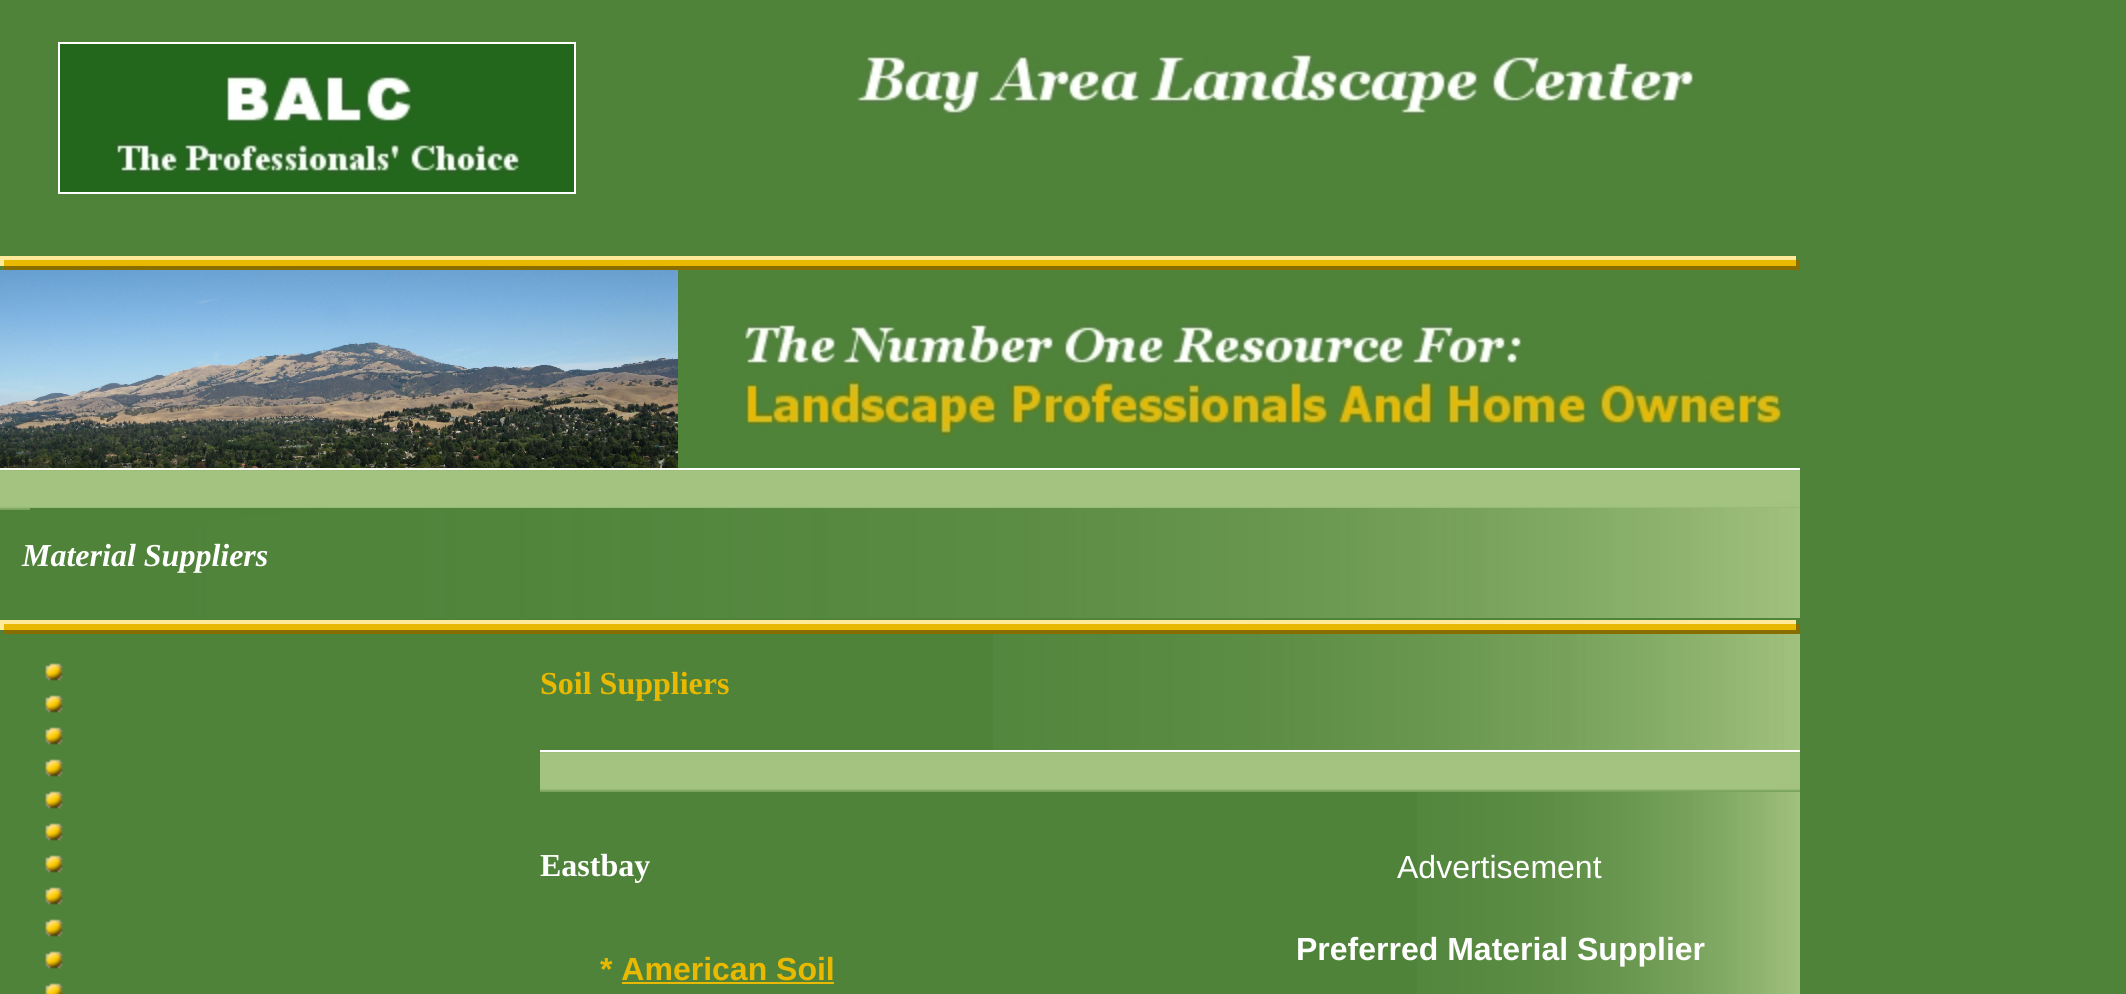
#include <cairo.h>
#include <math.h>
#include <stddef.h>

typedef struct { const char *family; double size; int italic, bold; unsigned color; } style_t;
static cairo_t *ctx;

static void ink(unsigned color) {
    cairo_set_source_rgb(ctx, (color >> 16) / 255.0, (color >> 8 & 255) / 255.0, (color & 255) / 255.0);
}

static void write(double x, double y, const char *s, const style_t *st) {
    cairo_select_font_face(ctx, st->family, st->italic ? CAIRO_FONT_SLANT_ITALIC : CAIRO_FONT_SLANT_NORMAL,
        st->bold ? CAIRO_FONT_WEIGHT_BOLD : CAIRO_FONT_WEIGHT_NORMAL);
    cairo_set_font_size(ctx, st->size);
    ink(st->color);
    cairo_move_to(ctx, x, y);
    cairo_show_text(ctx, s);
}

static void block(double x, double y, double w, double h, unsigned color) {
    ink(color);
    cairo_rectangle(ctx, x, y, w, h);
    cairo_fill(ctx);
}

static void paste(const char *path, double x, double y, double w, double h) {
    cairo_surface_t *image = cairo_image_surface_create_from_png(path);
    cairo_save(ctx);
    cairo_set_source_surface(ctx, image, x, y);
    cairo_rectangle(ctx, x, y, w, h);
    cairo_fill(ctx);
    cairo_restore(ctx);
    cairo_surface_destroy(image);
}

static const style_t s1 = {"Liberation Serif", 32, 1, 1, 0xffffff};
static const style_t s2 = {"Liberation Serif", 32, 0, 1, 0xe8b900};
static const style_t s3 = {"Liberation Serif", 32, 0, 1, 0xffffff};
static const style_t s4 = {"Liberation Sans", 32, 0, 1, 0xe8b900};
static const style_t s5 = {"Liberation Sans", 32, 0, 0, 0xffffff};
static const style_t s6 = {"Liberation Sans", 32, 0, 1, 0xffffff};

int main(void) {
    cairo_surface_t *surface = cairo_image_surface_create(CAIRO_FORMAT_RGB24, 2126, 994);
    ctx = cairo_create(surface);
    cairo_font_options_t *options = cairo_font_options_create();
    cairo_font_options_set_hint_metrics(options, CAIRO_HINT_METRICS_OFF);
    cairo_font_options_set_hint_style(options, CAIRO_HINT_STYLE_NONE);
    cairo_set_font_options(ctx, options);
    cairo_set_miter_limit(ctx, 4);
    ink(0x4f833a);
    cairo_paint(ctx);
    block(58, 42, 518, 152, 0xffffff);
    paste("pic1.png", 60, 44, 514, 148);
    paste("pic2.png", 857, 53, 837, 62);
    block(0, 256, 1796, 4, 0xffea99);
    block(0, 260, 4, 6, 0xffea99);
    block(4, 260, 1792, 6, 0xe8b900);
    block(1796, 260, 4, 6, 0x886d00);
    block(4, 266, 1796, 4, 0x886d00);
    paste("pic3.png", 0, 270, 678, 198);
    paste("pic4.png", 744, 324, 1039, 113);
    block(0, 468, 1800, 2, 0xffffff);
    paste("pic5.png", 0, 470, 1800, 40);
    paste("pic6.png", 30, 508, 1770, 110);
    write(22, 566, "Material Suppliers", &s1);
    block(0, 620, 1796, 4, 0xffea99);
    block(0, 624, 4, 6, 0xffea99);
    block(4, 624, 1792, 6, 0xe8b900);
    block(1796, 624, 4, 6, 0x886d00);
    block(4, 630, 1796, 4, 0x886d00);
    paste("pic7.png", 45, 663, 18, 18);
    paste("pic7.png", 45, 695, 18, 18);
    paste("pic7.png", 45, 727, 18, 18);
    paste("pic7.png", 45, 759, 18, 18);
    paste("pic7.png", 45, 791, 18, 18);
    paste("pic7.png", 45, 823, 18, 18);
    paste("pic7.png", 45, 855, 18, 18);
    paste("pic7.png", 45, 887, 18, 18);
    paste("pic7.png", 45, 919, 18, 18);
    paste("pic7.png", 45, 951, 18, 18);
    paste("pic8.png", 45, 983, 18, 11);
    write(540, 694, "Soil Suppliers", &s2);
    paste("pic9.png", 993, 634, 807, 116);
    block(540, 750, 1260, 2, 0xffffff);
    paste("pic10.png", 540, 752, 1260, 40);
    write(540, 876, "Eastbay", &s3);
    write(600, 980, "* American Soil", &s4);
    block(622, 982, 212, 2, 0xe8b900);
    paste("pic11.png", 1417, 792, 383, 202);
    write(1397, 878, "Advertisement", &s5);
    write(1296, 960, "Preferred Material Supplier", &s6);
    cairo_surface_write_to_png(surface, "screenshot.png");
    cairo_font_options_destroy(options);
    cairo_destroy(ctx);
    cairo_surface_destroy(surface);
    return 0;
}
